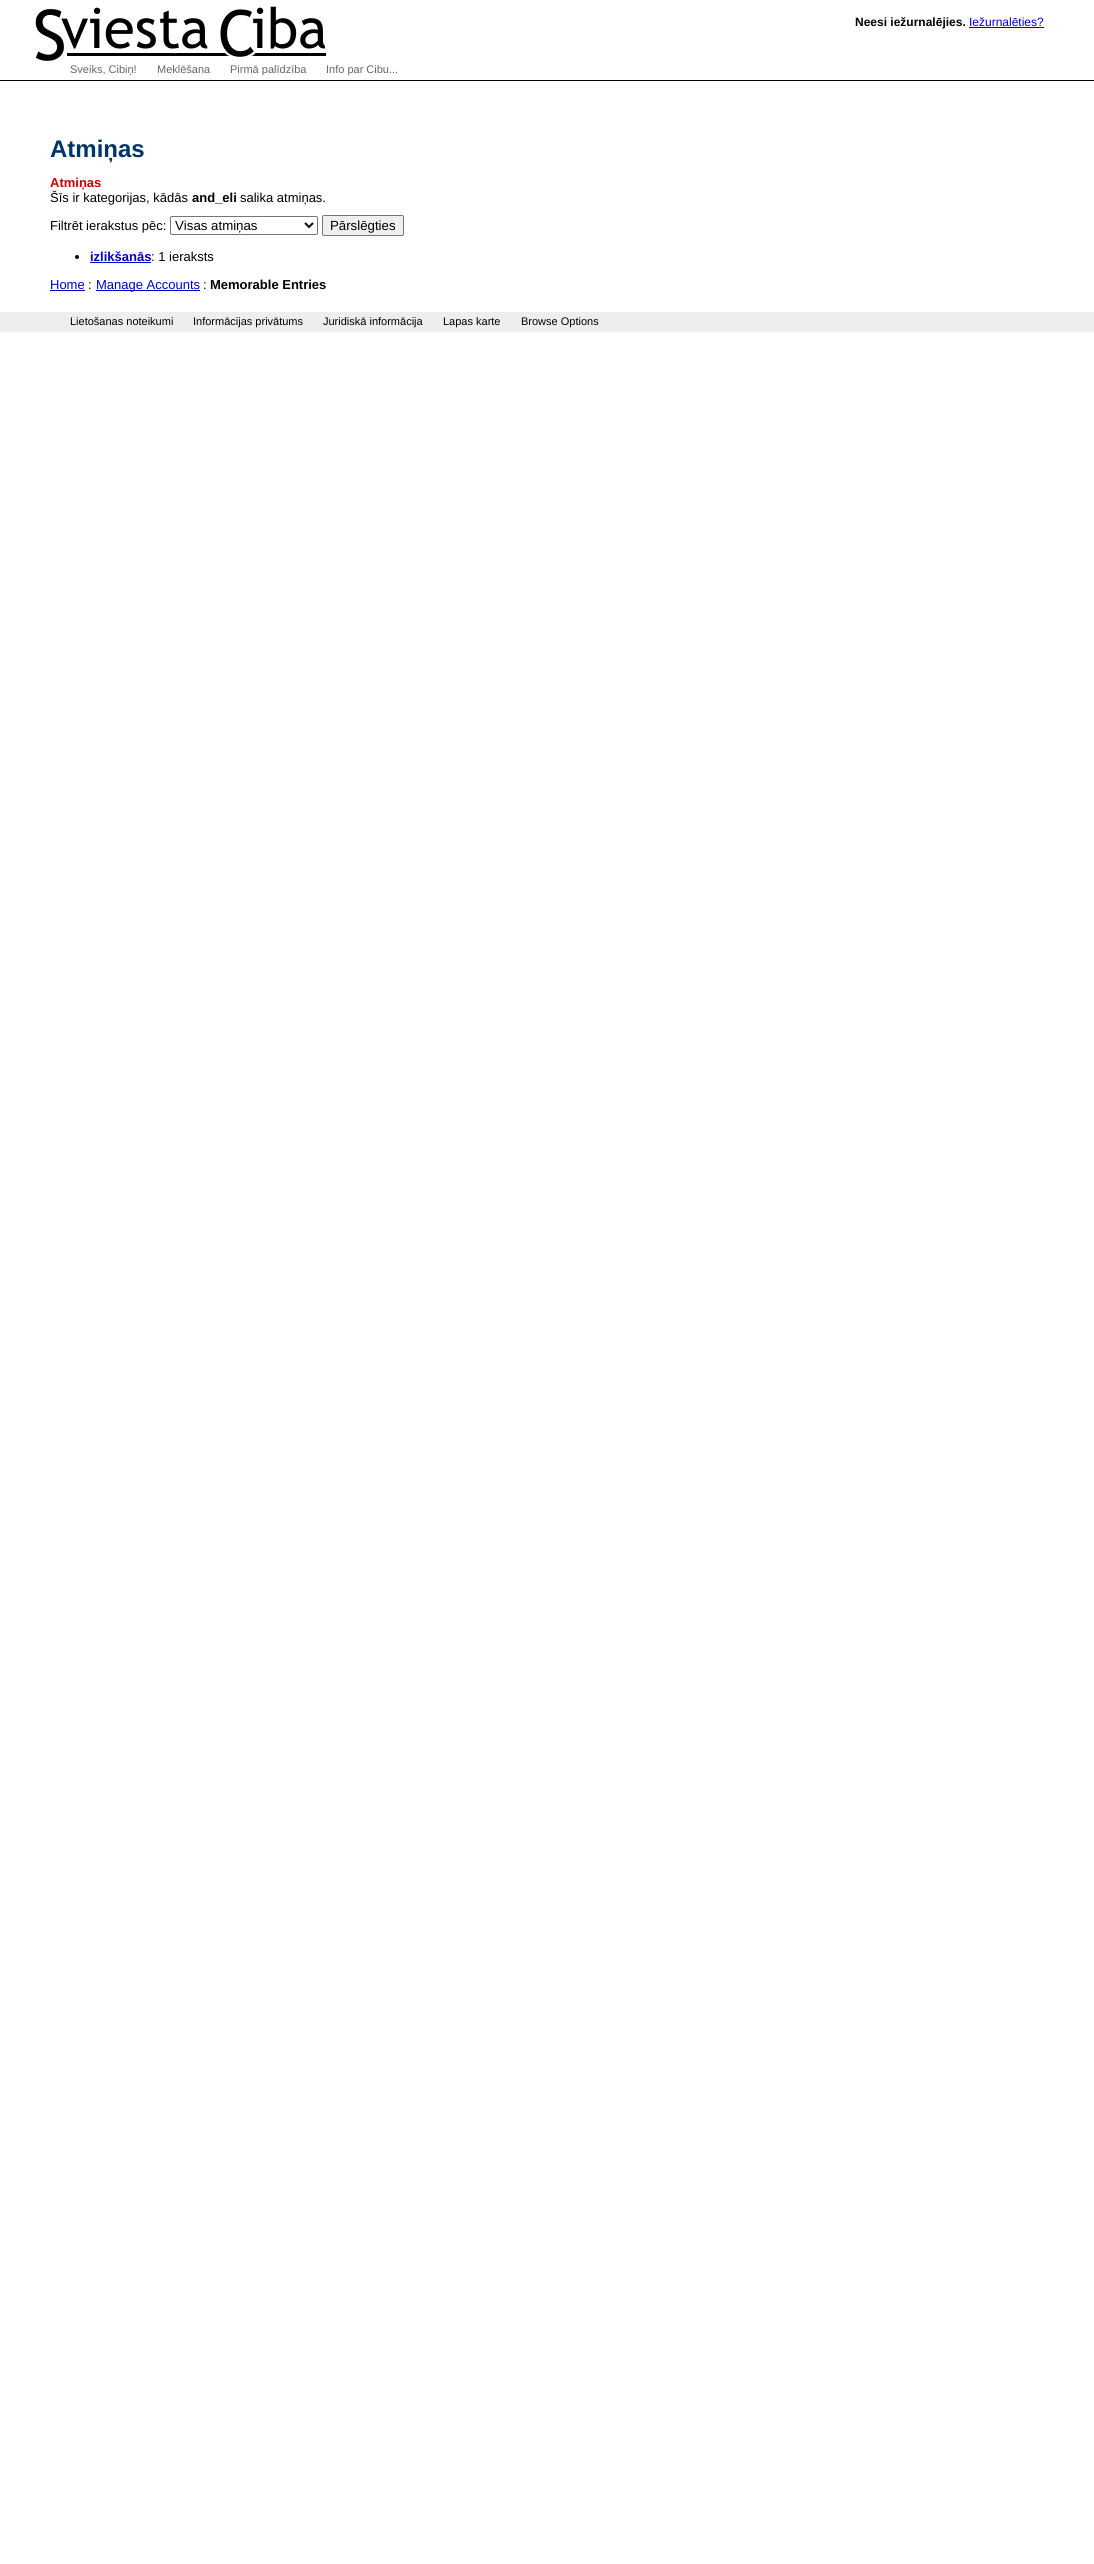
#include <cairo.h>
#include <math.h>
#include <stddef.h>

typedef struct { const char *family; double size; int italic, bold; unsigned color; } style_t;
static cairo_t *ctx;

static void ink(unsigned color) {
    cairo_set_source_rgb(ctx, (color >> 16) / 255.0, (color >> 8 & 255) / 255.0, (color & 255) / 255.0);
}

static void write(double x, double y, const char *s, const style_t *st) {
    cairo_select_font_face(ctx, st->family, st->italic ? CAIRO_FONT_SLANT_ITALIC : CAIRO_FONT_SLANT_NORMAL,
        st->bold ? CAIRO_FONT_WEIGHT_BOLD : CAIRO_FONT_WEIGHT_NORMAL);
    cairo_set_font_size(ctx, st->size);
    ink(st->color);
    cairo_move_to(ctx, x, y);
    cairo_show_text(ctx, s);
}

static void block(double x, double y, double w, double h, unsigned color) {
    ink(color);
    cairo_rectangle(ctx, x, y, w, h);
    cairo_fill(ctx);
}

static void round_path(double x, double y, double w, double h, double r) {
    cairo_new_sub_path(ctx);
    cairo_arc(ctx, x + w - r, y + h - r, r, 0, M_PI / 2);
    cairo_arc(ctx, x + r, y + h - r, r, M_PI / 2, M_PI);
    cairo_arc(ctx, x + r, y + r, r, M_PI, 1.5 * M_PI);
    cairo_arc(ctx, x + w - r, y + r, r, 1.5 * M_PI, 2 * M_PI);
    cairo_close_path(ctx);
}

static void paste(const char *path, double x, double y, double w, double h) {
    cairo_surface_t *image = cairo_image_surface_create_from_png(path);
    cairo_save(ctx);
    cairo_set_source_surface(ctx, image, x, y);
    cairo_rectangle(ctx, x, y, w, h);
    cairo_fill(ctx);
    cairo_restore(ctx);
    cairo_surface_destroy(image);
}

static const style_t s1 = {"Liberation Sans", 12, 0, 1, 0x000000};
static const style_t s2 = {"Liberation Sans", 12, 0, 0, 0x0000cc};
static const style_t s3 = {"Liberation Sans", 11, 0, 0, 0x666666};
static const style_t s4 = {"Liberation Sans", 24, 0, 1, 0x003366};
static const style_t s5 = {"Liberation Sans", 13, 0, 1, 0xcc0000};
static const style_t s6 = {"Liberation Sans", 13, 0, 0, 0x000000};
static const style_t s7 = {"Liberation Sans", 13, 0, 1, 0x000000};
static const style_t s8 = {"Liberation Sans", 13.25, 0, 0, 0x000000};
static const style_t s9 = {"Liberation Sans", 13, 0, 1, 0x0000cc};
static const style_t s10 = {"Liberation Sans", 13, 0, 0, 0x0000cc};
static const style_t s11 = {"Liberation Sans", 11, 0, 0, 0x000000};

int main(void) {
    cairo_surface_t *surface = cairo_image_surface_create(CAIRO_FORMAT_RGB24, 1094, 2564);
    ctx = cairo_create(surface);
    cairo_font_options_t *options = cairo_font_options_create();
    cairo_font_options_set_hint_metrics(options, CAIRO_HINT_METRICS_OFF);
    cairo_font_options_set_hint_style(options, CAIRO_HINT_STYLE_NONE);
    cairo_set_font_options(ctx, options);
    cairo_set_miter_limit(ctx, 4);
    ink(0xffffff);
    cairo_paint(ctx);
    block(0, 80, 1094, 1, 0x000000);
    paste("pic1.png", 35, 6, 291, 55);
    write(855, 26, "Neesi iežurnalējies.", &s1);
    write(969, 26, "Iežurnalēties?", &s2);
    block(969, 27, 75, 1, 0x0000cc);
    write(70, 73, "Sveiks, Cibiņ!", &s3);
    write(157, 73, "Meklēšana", &s3);
    write(230, 73, "Pirmā palīdzība", &s3);
    write(326, 73, "Info par Cibu...", &s3);
    write(50, 157, "Atmiņas", &s4);
    write(50, 187, "Atmiņas", &s5);
    write(50, 202, "Šīs ir kategorijas, kādās", &s6);
    write(192, 202, "and_eli", &s7);
    write(240, 202, "salika atmiņas.", &s6);
    write(50, 230, "Filtrēt ierakstus pēc:", &s6);
    round_path(170.5, 216.5, 147, 18, 1.5);
    ink(0x767676);
    cairo_set_line_width(ctx, 1);
    cairo_stroke(ctx);
    cairo_new_path(ctx);
    cairo_move_to(ctx, 305, 223);
    cairo_line_to(ctx, 309, 227);
    cairo_line_to(ctx, 313, 223);
    ink(0x000000);
    cairo_set_line_width(ctx, 2);
    cairo_stroke(ctx);
    write(175, 230, "Visas atmiņas", &s8);
    ink(0xefefef);
    round_path(322.5, 215.5, 81, 20, 1.5);
    cairo_fill_preserve(ctx);
    ink(0x767676);
    cairo_set_line_width(ctx, 1);
    cairo_stroke(ctx);
    write(330, 230, "Pārslēgties", &s8);
    cairo_new_path(ctx);
    cairo_arc(ctx, 77, 257, 2, 0, 2 * M_PI);
    cairo_fill(ctx);
    write(90, 261, "izlikšanās", &s9);
    block(90, 262, 61, 1, 0x0000cc);
    write(151, 261, ": 1 ieraksts", &s6);
    write(50, 289, "Home", &s10);
    block(50, 290, 35, 1, 0x0000cc);
    write(88, 289, ":", &s6);
    block(96, 290, 104, 1, 0x0000cc);
    write(96, 289, "Manage Accounts", &s10);
    write(203, 289, ":", &s6);
    write(210, 289, "Memorable Entries", &s7);
    block(0, 312, 1094, 20, 0xeeeeee);
    write(70, 325, "Lietošanas noteikumi", &s11);
    write(193, 325, "Informācijas privātums", &s11);
    write(323, 325, "Juridiskā informācija", &s11);
    write(443, 325, "Lapas karte", &s11);
    write(521, 325, "Browse Options", &s11);
    cairo_surface_write_to_png(surface, "screenshot.png");
    cairo_font_options_destroy(options);
    cairo_destroy(ctx);
    cairo_surface_destroy(surface);
    return 0;
}
